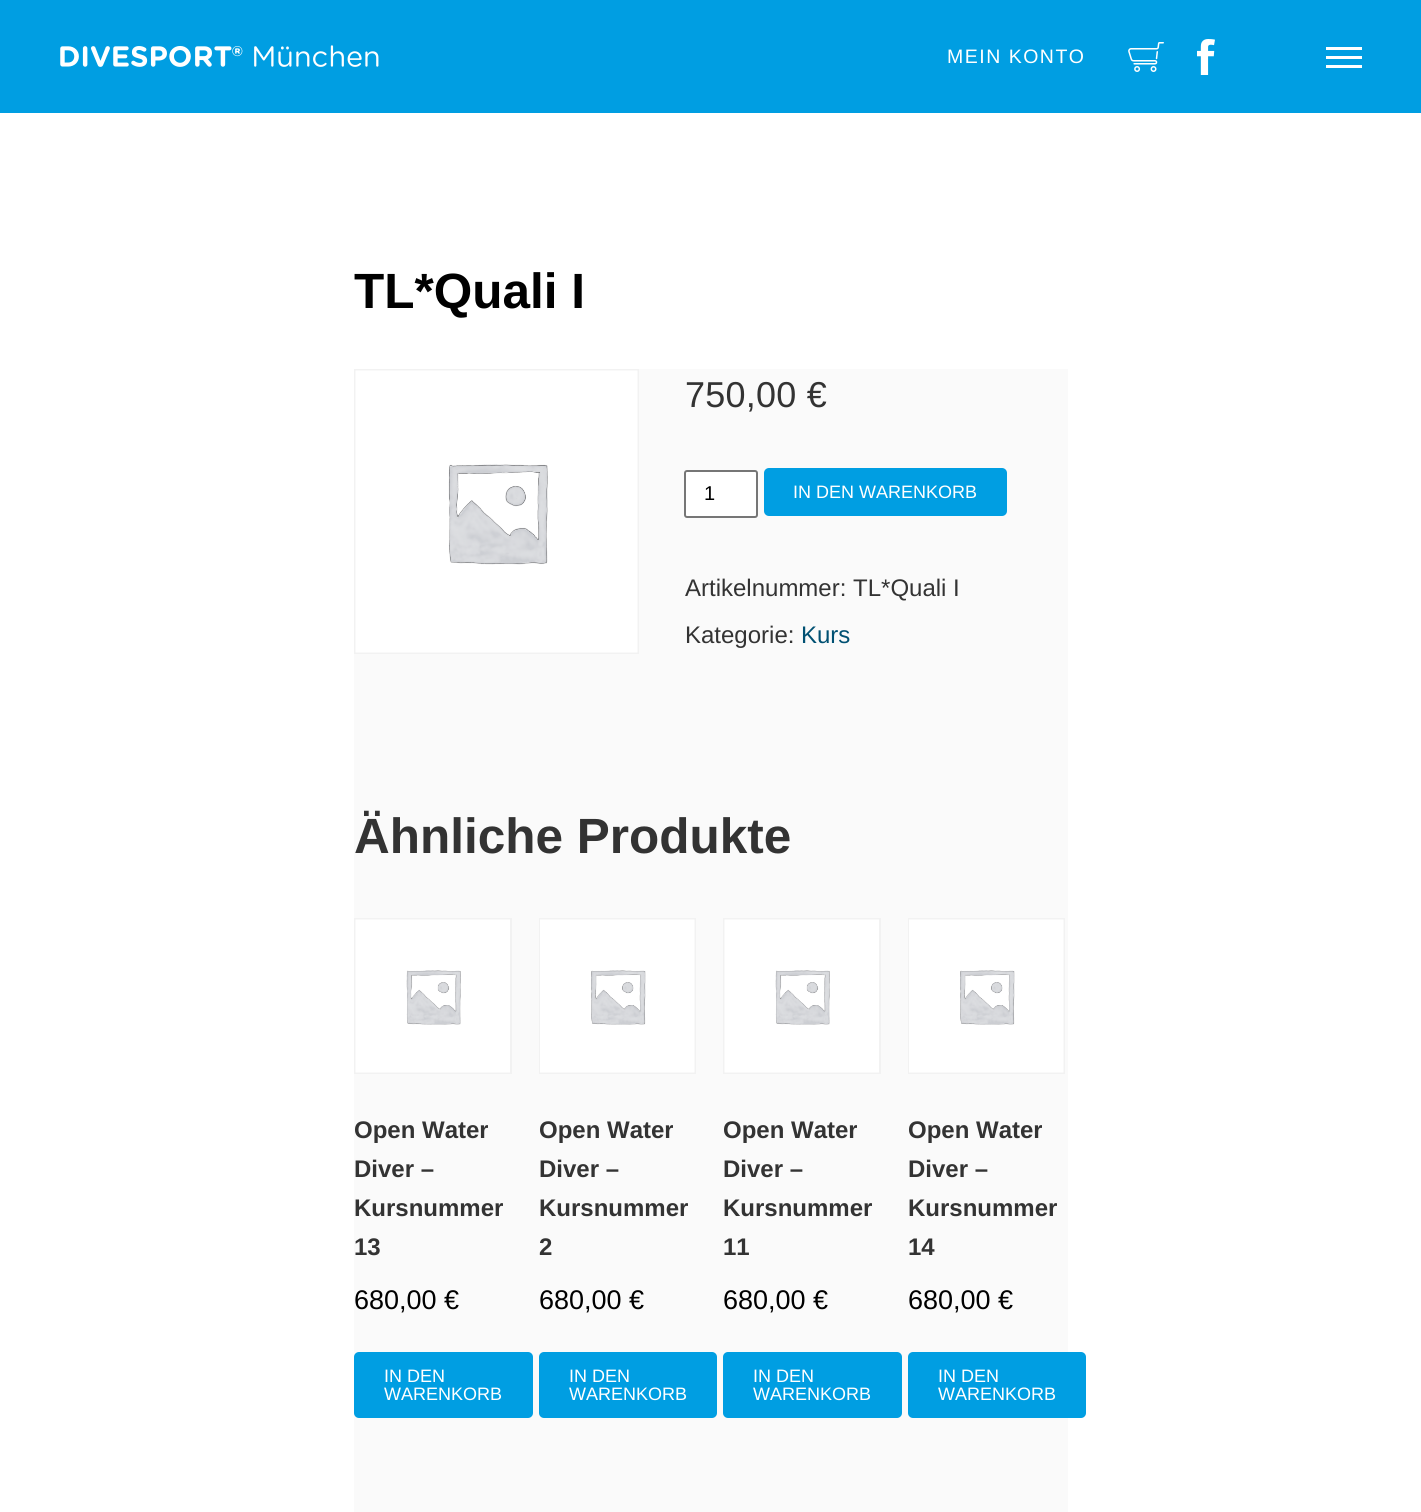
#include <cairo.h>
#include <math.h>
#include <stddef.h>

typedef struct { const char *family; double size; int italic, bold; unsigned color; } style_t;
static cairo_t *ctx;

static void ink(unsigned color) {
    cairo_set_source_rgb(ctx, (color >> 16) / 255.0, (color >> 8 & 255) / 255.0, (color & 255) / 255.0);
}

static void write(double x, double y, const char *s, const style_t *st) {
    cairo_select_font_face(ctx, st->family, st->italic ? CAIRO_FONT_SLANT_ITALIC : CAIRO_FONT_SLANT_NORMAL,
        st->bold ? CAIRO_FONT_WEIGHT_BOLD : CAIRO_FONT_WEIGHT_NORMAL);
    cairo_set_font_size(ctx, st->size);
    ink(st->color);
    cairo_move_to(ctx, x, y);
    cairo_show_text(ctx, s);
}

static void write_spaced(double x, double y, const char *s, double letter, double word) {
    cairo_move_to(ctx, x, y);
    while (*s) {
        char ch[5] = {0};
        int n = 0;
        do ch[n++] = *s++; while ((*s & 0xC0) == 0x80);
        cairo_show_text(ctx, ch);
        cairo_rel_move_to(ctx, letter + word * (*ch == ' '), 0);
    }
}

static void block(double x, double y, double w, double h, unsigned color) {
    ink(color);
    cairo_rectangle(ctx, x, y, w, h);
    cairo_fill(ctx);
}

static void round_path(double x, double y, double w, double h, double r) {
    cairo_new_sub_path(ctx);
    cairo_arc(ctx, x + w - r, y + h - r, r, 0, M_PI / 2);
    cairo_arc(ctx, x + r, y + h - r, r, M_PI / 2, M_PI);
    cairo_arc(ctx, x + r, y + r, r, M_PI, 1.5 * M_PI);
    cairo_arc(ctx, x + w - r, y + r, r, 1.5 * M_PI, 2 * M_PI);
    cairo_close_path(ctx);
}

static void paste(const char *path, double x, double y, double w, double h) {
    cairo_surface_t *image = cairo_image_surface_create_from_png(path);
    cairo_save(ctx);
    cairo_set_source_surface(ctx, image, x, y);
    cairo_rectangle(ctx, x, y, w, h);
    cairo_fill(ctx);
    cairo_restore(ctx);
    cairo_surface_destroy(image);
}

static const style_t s1 = {"Liberation Sans", 49.5, 0, 1, 0x000000};
static const style_t s2 = {"Liberation Sans", 20, 0, 0, 0x000000};
static const style_t s3 = {"Liberation Sans", 18, 0, 0, 0xffffff};
static const style_t s4 = {"Liberation Sans", 24, 0, 0, 0x333333};
static const style_t s5 = {"Liberation Sans", 24, 0, 0, 0x005072};
static const style_t s6 = {"Liberation Sans", 49.5, 0, 1, 0x333333};
static const style_t s7 = {"Liberation Sans", 24, 0, 1, 0x333333};
static const style_t s8 = {"Liberation Sans", 27, 0, 0, 0x000000};

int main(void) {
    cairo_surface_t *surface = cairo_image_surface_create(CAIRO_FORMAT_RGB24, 1421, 1512);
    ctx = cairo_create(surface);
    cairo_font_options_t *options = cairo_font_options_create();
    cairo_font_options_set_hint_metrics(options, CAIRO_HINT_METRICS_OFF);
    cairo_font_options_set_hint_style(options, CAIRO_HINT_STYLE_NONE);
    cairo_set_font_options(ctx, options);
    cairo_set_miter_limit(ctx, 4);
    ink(0xffffff);
    cairo_paint(ctx);
    block(0, 0, 1421, 113, 0x009ee2);
    paste("pic1.png", 60, 45, 319, 22);
    block(1326, 56, 36, 3, 0xffffff);
    block(1326, 47, 36, 3, 0xffffff);
    block(1326, 65, 36, 3, 0xffffff);
    cairo_select_font_face(ctx, "Liberation Sans", CAIRO_FONT_SLANT_NORMAL, CAIRO_FONT_WEIGHT_NORMAL);
    cairo_set_font_size(ctx, 19.5);
    write_spaced(947, 63, "MEIN KONTO", 1.5, 0);
    paste("pic2.png", 1128, 42, 36, 30);
    paste("pic3.png", 1197, 39, 18, 36);
    write(354, 308, "TL*Quali I", &s1);
    block(354, 369, 714, 1143, 0xfafafa);
    cairo_rectangle(ctx, 355, 370, 283, 283);
    ink(0xf2f2f2);
    cairo_stroke(ctx);
    paste("pic4.png", 355, 370, 283, 283);
    cairo_select_font_face(ctx, "Liberation Sans", CAIRO_FONT_SLANT_NORMAL, CAIRO_FONT_WEIGHT_NORMAL);
    cairo_set_font_size(ctx, 36);
    ink(0x333333);
    write_spaced(685, 407, "750,00 €", 0.25, 0);
    ink(0xffffff);
    round_path(685, 471, 72, 46, 2);
    cairo_fill_preserve(ctx);
    ink(0x767676);
    cairo_stroke(ctx);
    write(704, 500, "1", &s2);
    ink(0x009ee2);
    round_path(764, 468, 243, 48, 5);
    cairo_fill(ctx);
    write(793, 498, "IN DEN WARENKORB", &s3);
    write(685, 596, "Artikelnummer: TL*Quali I", &s4);
    write(685, 643, "Kategorie:", &s4);
    write(801, 643, "Kurs", &s5);
    write(354, 853, "Ähnliche Produkte", &s6);
    cairo_rectangle(ctx, 355, 919, 156, 154);
    ink(0xf2f2f2);
    cairo_stroke(ctx);
    paste("pic5.png", 355, 919, 155, 154);
    write(354, 1138, "Open Water", &s7);
    write(354, 1177, "Diver –", &s7);
    write(354, 1216, "Kursnummer", &s7);
    write(354, 1255, "13", &s7);
    write(354, 1309, "680,00 €", &s8);
    ink(0x009ee2);
    round_path(354, 1352, 179, 66, 5);
    cairo_fill(ctx);
    write(384, 1382, "IN DEN", &s3);
    write(384, 1400, "WARENKORB", &s3);
    cairo_rectangle(ctx, 540, 919, 155, 154);
    ink(0xf2f2f2);
    cairo_stroke(ctx);
    paste("pic6.png", 540, 919, 155, 154);
    write(539, 1138, "Open Water", &s7);
    write(539, 1177, "Diver –", &s7);
    write(539, 1216, "Kursnummer", &s7);
    write(539, 1255, "2", &s7);
    write(539, 1309, "680,00 €", &s8);
    ink(0x009ee2);
    round_path(539, 1352, 178, 66, 5);
    cairo_fill(ctx);
    write(569, 1382, "IN DEN", &s3);
    write(569, 1400, "WARENKORB", &s3);
    cairo_rectangle(ctx, 724, 919, 156, 154);
    ink(0xf2f2f2);
    cairo_stroke(ctx);
    paste("pic5.png", 724, 919, 155, 154);
    write(723, 1138, "Open Water", &s7);
    write(723, 1177, "Diver –", &s7);
    write(723, 1216, "Kursnummer", &s7);
    write(723, 1255, "11", &s7);
    write(723, 1309, "680,00 €", &s8);
    ink(0x009ee2);
    round_path(723, 1352, 179, 66, 5);
    cairo_fill(ctx);
    write(753, 1382, "IN DEN", &s3);
    write(753, 1400, "WARENKORB", &s3);
    cairo_rectangle(ctx, 909, 919, 155, 154);
    ink(0xf2f2f2);
    cairo_stroke(ctx);
    paste("pic6.png", 909, 919, 155, 154);
    write(908, 1138, "Open Water", &s7);
    write(908, 1177, "Diver –", &s7);
    write(908, 1216, "Kursnummer", &s7);
    write(908, 1255, "14", &s7);
    write(908, 1309, "680,00 €", &s8);
    ink(0x009ee2);
    round_path(908, 1352, 178, 66, 5);
    cairo_fill(ctx);
    write(938, 1382, "IN DEN", &s3);
    write(938, 1400, "WARENKORB", &s3);
    cairo_surface_write_to_png(surface, "screenshot.png");
    cairo_font_options_destroy(options);
    cairo_destroy(ctx);
    cairo_surface_destroy(surface);
    return 0;
}
